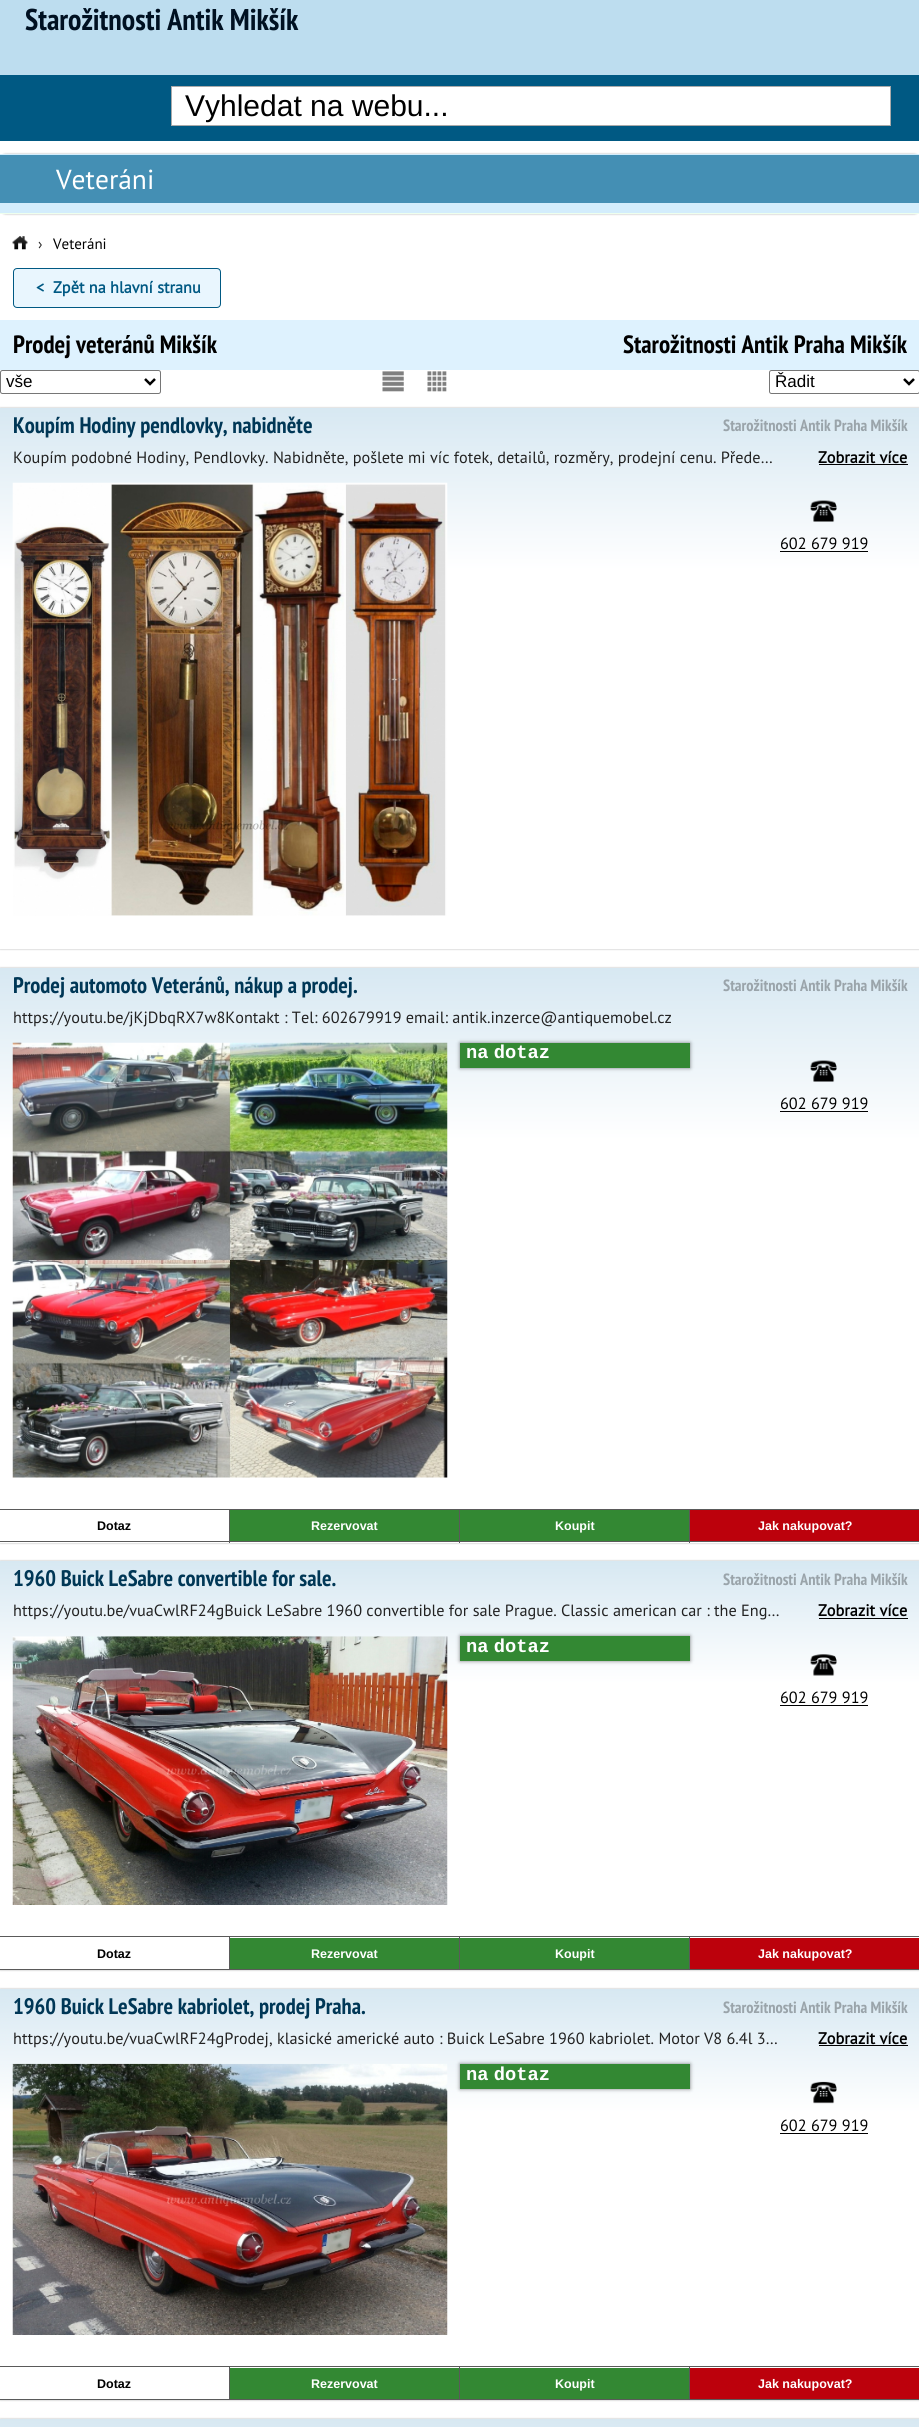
#include <cairo.h>
#include <math.h>
#include <stddef.h>

typedef struct { const char *family; double size; int italic, bold; unsigned color; } style_t;
static cairo_t *ctx;

static void ink(unsigned color) {
    cairo_set_source_rgb(ctx, (color >> 16) / 255.0, (color >> 8 & 255) / 255.0, (color & 255) / 255.0);
}

static void write(double x, double y, const char *s, const style_t *st) {
    cairo_select_font_face(ctx, st->family, st->italic ? CAIRO_FONT_SLANT_ITALIC : CAIRO_FONT_SLANT_NORMAL,
        st->bold ? CAIRO_FONT_WEIGHT_BOLD : CAIRO_FONT_WEIGHT_NORMAL);
    cairo_set_font_size(ctx, st->size);
    ink(st->color);
    cairo_move_to(ctx, x, y);
    cairo_show_text(ctx, s);
}

static void write_spaced(double x, double y, const char *s, double letter, double word) {
    cairo_move_to(ctx, x, y);
    while (*s) {
        char ch[5] = {0};
        int n = 0;
        do ch[n++] = *s++; while ((*s & 0xC0) == 0x80);
        cairo_show_text(ctx, ch);
        cairo_rel_move_to(ctx, letter + word * (*ch == ' '), 0);
    }
}

static void block(double x, double y, double w, double h, unsigned color) {
    ink(color);
    cairo_rectangle(ctx, x, y, w, h);
    cairo_fill(ctx);
}

static void round_path(double x, double y, double w, double h, double r) {
    cairo_new_sub_path(ctx);
    cairo_arc(ctx, x + w - r, y + h - r, r, 0, M_PI / 2);
    cairo_arc(ctx, x + r, y + h - r, r, M_PI / 2, M_PI);
    cairo_arc(ctx, x + r, y + r, r, M_PI, 1.5 * M_PI);
    cairo_arc(ctx, x + w - r, y + r, r, 1.5 * M_PI, 2 * M_PI);
    cairo_close_path(ctx);
}

static void blur_box(double x, double y, double w, double h, double r, double blur, double alpha) {
    cairo_push_group_with_content(ctx, CAIRO_CONTENT_ALPHA);
    cairo_set_operator(ctx, CAIRO_OPERATOR_SOURCE);
    for (int i = 15; i >= -15 && fmin(w, h) + blur * i / 3 > 0; i -= 2) {
        double e = blur * i / 6;
        cairo_set_source_rgba(ctx, 0, 0, 0, alpha * erfc((i - 1) / 8.5) / 2);
        round_path(x - e, y - e, w + 2 * e, h + 2 * e, fmax(0, fmin(r + e + blur * .6, fmin(w, h) / 2 + e)));
        cairo_fill(ctx);
    }
    cairo_pattern_t *soft = cairo_pop_group(ctx);
    cairo_mask(ctx, soft);
    cairo_pattern_destroy(soft);
}

static void paste(const char *path, double x, double y, double w, double h) {
    cairo_surface_t *image = cairo_image_surface_create_from_png(path);
    cairo_save(ctx);
    cairo_set_source_surface(ctx, image, x, y);
    cairo_rectangle(ctx, x, y, w, h);
    cairo_fill(ctx);
    cairo_restore(ctx);
    cairo_surface_destroy(image);
}

static const style_t s1 = {"PT Sans Narrow", 30, 0, 1, 0x001122};
static const style_t s2 = {"Liberation Sans", 30, 0, 0, 0x000000};
static const style_t s3 = {"PT Sans", 27.5, 0, 0, 0xffffff};
static const style_t s4 = {"PT Sans", 15, 0, 0, 0x222222};
static const style_t s5 = {"PT Sans", 15, 0, 0, 0x000000};
static const style_t s6 = {"PT Sans", 16.25, 0, 1, 0x005983};
static const style_t s7 = {"PT Sans Narrow", 25, 0, 1, 0x000000};
static const style_t s8 = {"Liberation Sans", 17, 0, 0, 0x000000};
static const style_t s9 = {"PT Sans Narrow", 22.5, 0, 1, 0x003756};
static const style_t s10 = {"PT Sans Narrow", 16.25, 0, 1, 0x9aa4aa};
static const style_t s11 = {"PT Sans", 16.25, 0, 0, 0x222222};
static const style_t s12 = {"PT Sans", 16.25, 0, 1, 0x000000};
static const style_t s13 = {"PT Sans", 16.25, 0, 0, 0x000000};
static const style_t s14 = {"Liberation Sans", 12.5, 0, 1, 0x000000};
static const style_t s15 = {"Liberation Sans", 12.5, 0, 1, 0xffffff};

int main(void) {
    cairo_surface_t *surface = cairo_image_surface_create(CAIRO_FORMAT_RGB24, 919, 2427);
    ctx = cairo_create(surface);
    cairo_font_options_t *options = cairo_font_options_create();
    cairo_font_options_set_hint_metrics(options, CAIRO_HINT_METRICS_OFF);
    cairo_font_options_set_hint_style(options, CAIRO_HINT_STYLE_NONE);
    cairo_set_font_options(ctx, options);
    cairo_set_miter_limit(ctx, 4);
    cairo_pattern_t *gradient;
    ink(0xffffff);
    cairo_paint(ctx);
    block(0, 0, 919, 75, 0xbdddef);
    write(25, 30, "Starožitnosti Antik Mikšík", &s1);
    block(0, 75, 919, 66, 0x005983);
    ink(0xffffff);
    cairo_rectangle(ctx, 171.5, 86.5, 719, 39);
    cairo_fill_preserve(ctx);
    ink(0xaaaaaa);
    cairo_set_line_width(ctx, 1);
    cairo_stroke(ctx);
    write(185, 116, "Vyhledat na webu...", &s2);
    ink(0x000000);
    blur_box(0, 154, 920, 60, 6, 1, 0.3);
    block(0, 154, 919, 59, 0xd3edfc);
    block(0, 213, 919, 1, 0xeeffee);
    block(0, 155, 919, 48, 0x448fb4);
    write(56, 189, "Veteráni", &s3);
    paste("pic1.png", 12, 236, 16, 14);
    write(38, 249, "›", &s4);
    write(53, 249, "Veteráni", &s5);
    ink(0xe9f6fe);
    round_path(13.5, 268.5, 207, 39, 3.5);
    cairo_fill_preserve(ctx);
    ink(0x005983);
    cairo_stroke(ctx);
    write(36, 293, "<", &s6);
    write(53, 293, "Zpět na hlavní stranu", &s6);
    block(0, 320, 919, 50, 0xdef2fe);
    write(13, 353, "Prodej veteránů Mikšík", &s7);
    write(623, 353, "Starožitnosti Antik Praha Mikšík", &s7);
    round_path(0.5, 370.5, 160, 23, 2);
    ink(0x767676);
    cairo_stroke(ctx);
    cairo_new_path(ctx);
    cairo_move_to(ctx, 145, 379);
    cairo_line_to(ctx, 150, 384);
    cairo_line_to(ctx, 155, 379);
    ink(0x000000);
    cairo_set_line_width(ctx, 2.5);
    cairo_stroke(ctx);
    write(6, 387, "vše", &s8);
    paste("pic2.png", 382, 371, 22, 21);
    paste("pic3.png", 427, 371, 20, 21);
    round_path(769.5, 370.5, 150, 23, 2);
    ink(0x767676);
    cairo_set_line_width(ctx, 1);
    cairo_stroke(ctx);
    cairo_new_path(ctx);
    cairo_move_to(ctx, 904, 379);
    cairo_line_to(ctx, 909, 384);
    cairo_line_to(ctx, 914, 379);
    ink(0x000000);
    cairo_set_line_width(ctx, 2.5);
    cairo_stroke(ctx);
    write(775, 387, "Řadit", &s8);
    ink(0x000000);
    blur_box(0, 408, 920, 541, 0, 1, 0.3);
    gradient = cairo_pattern_create_linear(460, 407, 460, 949);
    cairo_pattern_add_color_stop_rgba(gradient, 0, 0.843, 0.91, 0.949, 1);
    cairo_pattern_add_color_stop_rgba(gradient, 0.3, 1, 1, 1, 1);
    cairo_pattern_add_color_stop_rgba(gradient, 1, 1, 1, 1, 1);
    cairo_set_source(ctx, gradient);
    cairo_pattern_destroy(gradient);
    cairo_rectangle(ctx, 0, 408, 919, 541);
    cairo_fill(ctx);
    write(13, 433, "Koupím Hodiny pendlovky, nabidněte", &s9);
    write(723, 431, "Starožitnosti Antik Praha Mikšík", &s10);
    write(13, 463, "Koupím podobné Hodiny, Pendlovky. Nabidněte, pošlete mi víc fotek, detailů, rozměry, prodejní cenu. Přede…", &s11);
    write(818, 463, "Zobrazit více", &s12);
    block(819, 464, 89, 1, 0x000000);
    paste("pic4.png", 12, 482, 436, 434);
    paste("pic5.png", 810, 500, 27, 22);
    write(780, 549, "602 679 919", &s13);
    block(780, 551, 88, 1, 0x000000);
    ink(0x000000);
    blur_box(0, 968, 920, 575, 0, 1, 0.3);
    gradient = cairo_pattern_create_linear(460, 968, 460, 1543);
    cairo_pattern_add_color_stop_rgba(gradient, 0, 0.843, 0.91, 0.949, 1);
    cairo_pattern_add_color_stop_rgba(gradient, 0.3, 1, 1, 1, 1);
    cairo_pattern_add_color_stop_rgba(gradient, 1, 1, 1, 1, 1);
    cairo_set_source(ctx, gradient);
    cairo_pattern_destroy(gradient);
    cairo_rectangle(ctx, 0, 968, 919, 575);
    cairo_fill(ctx);
    write(13, 993, "Prodej automoto Veteránů, nákup a prodej.", &s9);
    write(723, 991, "Starožitnosti Antik Praha Mikšík", &s10);
    write(13, 1023, "https://youtu.be/jKjDbqRX7w8Kontakt : Tel: 602679919 email: antik.inzerce@antiquemobel.cz", &s11);
    paste("pic6.png", 12, 1042, 436, 436);
    ink(0x000000);
    blur_box(460, 1043, 230, 25, 0, 2, 0.5);
    block(460, 1043, 230, 25, 0x338833);
    cairo_select_font_face(ctx, "Liberation Mono", CAIRO_FONT_SLANT_NORMAL, CAIRO_FONT_WEIGHT_BOLD);
    cairo_set_font_size(ctx, 18.75);
    ink(0xffffff);
    write_spaced(466, 1058, "na dotaz", 0, -6);
    paste("pic7.png", 810, 1060, 27, 22);
    write(780, 1109, "602 679 919", &s13);
    block(780, 1111, 88, 1, 0x000000);
    block(0, 1509, 919, 1, 0x5a5a5a);
    block(229, 1509, 1, 34, 0x5a5a5a);
    block(0, 1541, 230, 1, 0x5a5a5a);
    write(97, 1530, "Dotaz", &s14);
    block(230, 1510, 229, 31, 0x338833);
    block(459, 1509, 1, 34, 0x5a5a5a);
    block(230, 1541, 230, 1, 0x5a5a5a);
    write(311, 1530, "Rezervovat", &s15);
    block(460, 1510, 229, 31, 0x338833);
    block(689, 1509, 1, 34, 0x5a5a5a);
    block(460, 1541, 459, 1, 0x5a5a5a);
    write(555, 1530, "Koupit", &s15);
    block(690, 1510, 229, 31, 0xbc010c);
    write(758, 1530, "Jak nakupovat?", &s15);
    ink(0x000000);
    blur_box(0, 1561, 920, 409, 0, 1, 0.3);
    gradient = cairo_pattern_create_linear(460, 1561, 460, 1970);
    cairo_pattern_add_color_stop_rgba(gradient, 0, 0.843, 0.91, 0.949, 1);
    cairo_pattern_add_color_stop_rgba(gradient, 0.3, 1, 1, 1, 1);
    cairo_pattern_add_color_stop_rgba(gradient, 1, 1, 1, 1, 1);
    cairo_set_source(ctx, gradient);
    cairo_pattern_destroy(gradient);
    cairo_rectangle(ctx, 0, 1561, 919, 408);
    cairo_fill(ctx);
    write(13, 1586, "1960 Buick LeSabre convertible for sale.", &s9);
    write(723, 1585, "Starožitnosti Antik Praha Mikšík", &s10);
    write(13, 1616, "https://youtu.be/vuaCwlRF24gBuick LeSabre 1960 convertible for sale Prague. Classic american car : the Eng…", &s11);
    write(818, 1616, "Zobrazit více", &s12);
    block(819, 1618, 89, 1, 0x000000);
    paste("pic8.png", 12, 1636, 436, 269);
    ink(0x000000);
    blur_box(460, 1636, 230, 25, 0, 2, 0.5);
    block(460, 1636, 230, 25, 0x338833);
    cairo_select_font_face(ctx, "Liberation Mono", CAIRO_FONT_SLANT_NORMAL, CAIRO_FONT_WEIGHT_BOLD);
    cairo_set_font_size(ctx, 18.75);
    ink(0xffffff);
    write_spaced(466, 1652, "na dotaz", 0, -6);
    paste("pic9.png", 810, 1654, 27, 22);
    write(780, 1703, "602 679 919", &s13);
    block(780, 1705, 88, 1, 0x000000);
    block(0, 1936, 919, 1, 0x5a5a5a);
    block(229, 1936, 1, 34, 0x5a5a5a);
    block(0, 1969, 230, 1, 0x5a5a5a);
    write(97, 1958, "Dotaz", &s14);
    block(230, 1938, 229, 31, 0x338833);
    block(459, 1936, 1, 34, 0x5a5a5a);
    block(230, 1969, 230, 1, 0x5a5a5a);
    write(311, 1958, "Rezervovat", &s15);
    block(460, 1938, 229, 31, 0x338833);
    block(689, 1936, 1, 34, 0x5a5a5a);
    block(460, 1969, 459, 1, 0x5a5a5a);
    write(555, 1958, "Koupit", &s15);
    block(690, 1938, 229, 31, 0xbc010c);
    write(758, 1958, "Jak nakupovat?", &s15);
    ink(0x000000);
    blur_box(0, 1989, 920, 411, 0, 1, 0.3);
    gradient = cairo_pattern_create_linear(460, 1989, 460, 2400);
    cairo_pattern_add_color_stop_rgba(gradient, 0, 0.843, 0.91, 0.949, 1);
    cairo_pattern_add_color_stop_rgba(gradient, 0.3, 1, 1, 1, 1);
    cairo_pattern_add_color_stop_rgba(gradient, 1, 1, 1, 1, 1);
    cairo_set_source(ctx, gradient);
    cairo_pattern_destroy(gradient);
    cairo_rectangle(ctx, 0, 1989, 919, 410);
    cairo_fill(ctx);
    write(13, 2014, "1960 Buick LeSabre kabriolet, prodej Praha.", &s9);
    write(723, 2013, "Starožitnosti Antik Praha Mikšík", &s10);
    write(13, 2044, "https://youtu.be/vuaCwlRF24gProdej, klasické americké auto : Buick LeSabre 1960 kabriolet. Motor V8 6.4l 3…", &s11);
    write(818, 2044, "Zobrazit více", &s12);
    block(819, 2045, 89, 1, 0x000000);
    paste("pic10.png", 12, 2063, 436, 272);
    ink(0x000000);
    blur_box(460, 2064, 230, 25, 0, 2, 0.5);
    block(460, 2064, 230, 25, 0x338833);
    cairo_select_font_face(ctx, "Liberation Mono", CAIRO_FONT_SLANT_NORMAL, CAIRO_FONT_WEIGHT_BOLD);
    cairo_set_font_size(ctx, 18.75);
    ink(0xffffff);
    write_spaced(466, 2080, "na dotaz", 0, -6);
    paste("pic11.png", 810, 2081, 27, 23);
    write(780, 2131, "602 679 919", &s13);
    block(780, 2133, 88, 1, 0x000000);
    block(0, 2366, 919, 1, 0x5a5a5a);
    block(229, 2366, 1, 34, 0x5a5a5a);
    block(0, 2399, 230, 1, 0x5a5a5a);
    write(97, 2388, "Dotaz", &s14);
    block(230, 2368, 229, 31, 0x338833);
    block(459, 2366, 1, 34, 0x5a5a5a);
    block(230, 2399, 230, 1, 0x5a5a5a);
    write(311, 2388, "Rezervovat", &s15);
    block(460, 2368, 229, 31, 0x338833);
    block(689, 2366, 1, 34, 0x5a5a5a);
    block(460, 2399, 459, 1, 0x5a5a5a);
    write(555, 2388, "Koupit", &s15);
    block(690, 2368, 229, 31, 0xbc010c);
    write(758, 2388, "Jak nakupovat?", &s15);
    ink(0x000000);
    blur_box(0, 2419, 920, 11, 0, 1, 0.3);
    gradient = cairo_pattern_create_linear(460, 2419, 460, 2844);
    cairo_pattern_add_color_stop_rgba(gradient, 0, 0.843, 0.91, 0.949, 1);
    cairo_pattern_add_color_stop_rgba(gradient, 0.3, 1, 1, 1, 1);
    cairo_pattern_add_color_stop_rgba(gradient, 1, 1, 1, 1, 1);
    cairo_set_source(ctx, gradient);
    cairo_pattern_destroy(gradient);
    cairo_rectangle(ctx, 0, 2419, 919, 8);
    cairo_fill(ctx);
    cairo_surface_write_to_png(surface, "screenshot.png");
    cairo_font_options_destroy(options);
    cairo_destroy(ctx);
    cairo_surface_destroy(surface);
    return 0;
}
